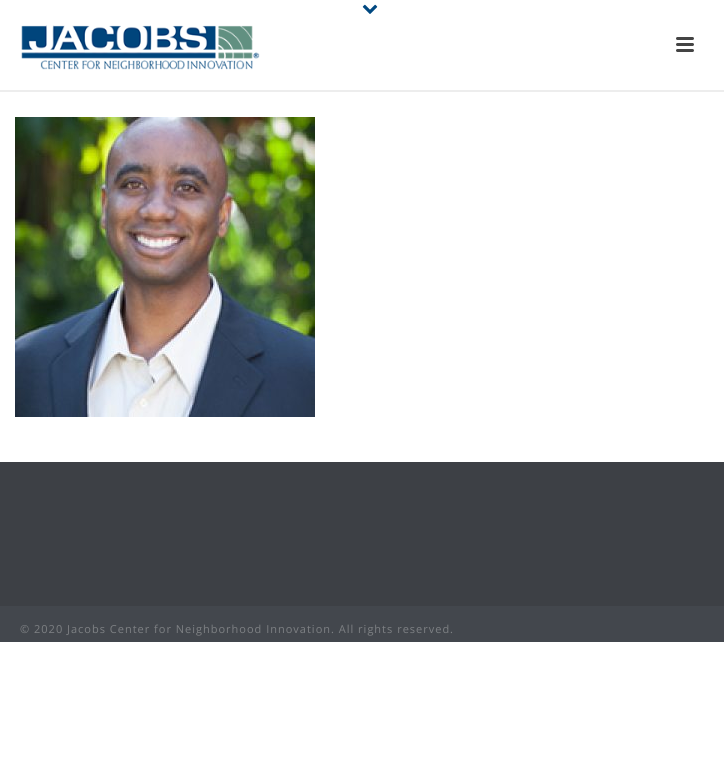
#include <cairo.h>
#include <math.h>
#include <stddef.h>

static cairo_t *ctx;

static void ink(unsigned color) {
    cairo_set_source_rgb(ctx, (color >> 16) / 255.0, (color >> 8 & 255) / 255.0, (color & 255) / 255.0);
}

static void write_spaced(double x, double y, const char *s, double letter, double word) {
    cairo_move_to(ctx, x, y);
    while (*s) {
        char ch[5] = {0};
        int n = 0;
        do ch[n++] = *s++; while ((*s & 0xC0) == 0x80);
        cairo_show_text(ctx, ch);
        cairo_rel_move_to(ctx, letter + word * (*ch == ' '), 0);
    }
}

static void block(double x, double y, double w, double h, unsigned color) {
    ink(color);
    cairo_rectangle(ctx, x, y, w, h);
    cairo_fill(ctx);
}

static void round_path(double x, double y, double w, double h, double r) {
    cairo_new_sub_path(ctx);
    cairo_arc(ctx, x + w - r, y + h - r, r, 0, M_PI / 2);
    cairo_arc(ctx, x + r, y + h - r, r, M_PI / 2, M_PI);
    cairo_arc(ctx, x + r, y + r, r, M_PI, 1.5 * M_PI);
    cairo_arc(ctx, x + w - r, y + r, r, 1.5 * M_PI, 2 * M_PI);
    cairo_close_path(ctx);
}

static void paste(const char *path, double x, double y, double w, double h) {
    cairo_surface_t *image = cairo_image_surface_create_from_png(path);
    cairo_save(ctx);
    cairo_set_source_surface(ctx, image, x, y);
    cairo_rectangle(ctx, x, y, w, h);
    cairo_fill(ctx);
    cairo_restore(ctx);
    cairo_surface_destroy(image);
}

int main(void) {
    cairo_surface_t *surface = cairo_image_surface_create(CAIRO_FORMAT_RGB24, 724, 772);
    ctx = cairo_create(surface);
    cairo_font_options_t *options = cairo_font_options_create();
    cairo_font_options_set_hint_metrics(options, CAIRO_HINT_METRICS_OFF);
    cairo_font_options_set_hint_style(options, CAIRO_HINT_STYLE_NONE);
    cairo_set_font_options(ctx, options);
    cairo_set_miter_limit(ctx, 4);
    ink(0xffffff);
    cairo_paint(ctx);
    block(0, 90, 724, 2, 0xededed);
    paste("pic1.png", 362, 4, 16, 10);
    paste("pic2.png", 21, 25, 239, 45);
    ink(0x444444);
    round_path(676, 37, 18, 3, 1.5);
    cairo_fill(ctx);
    round_path(676, 43, 18, 3, 1.5);
    cairo_fill(ctx);
    round_path(676, 49, 18, 3, 1.5);
    cairo_fill(ctx);
    paste("pic3.png", 15, 117, 300, 300);
    block(0, 462, 724, 144, 0x3d4045);
    block(0, 606, 724, 36, 0x43474d);
    cairo_select_font_face(ctx, "Open Sans", CAIRO_FONT_SLANT_NORMAL, CAIRO_FONT_WEIGHT_NORMAL);
    cairo_set_font_size(ctx, 11);
    ink(0x7d8083);
    write_spaced(20, 633, "© 2020 Jacobs Center for Neighborhood Innovation. All rights reserved.", 1, 0);
    cairo_surface_write_to_png(surface, "screenshot.png");
    cairo_font_options_destroy(options);
    cairo_destroy(ctx);
    cairo_surface_destroy(surface);
    return 0;
}
